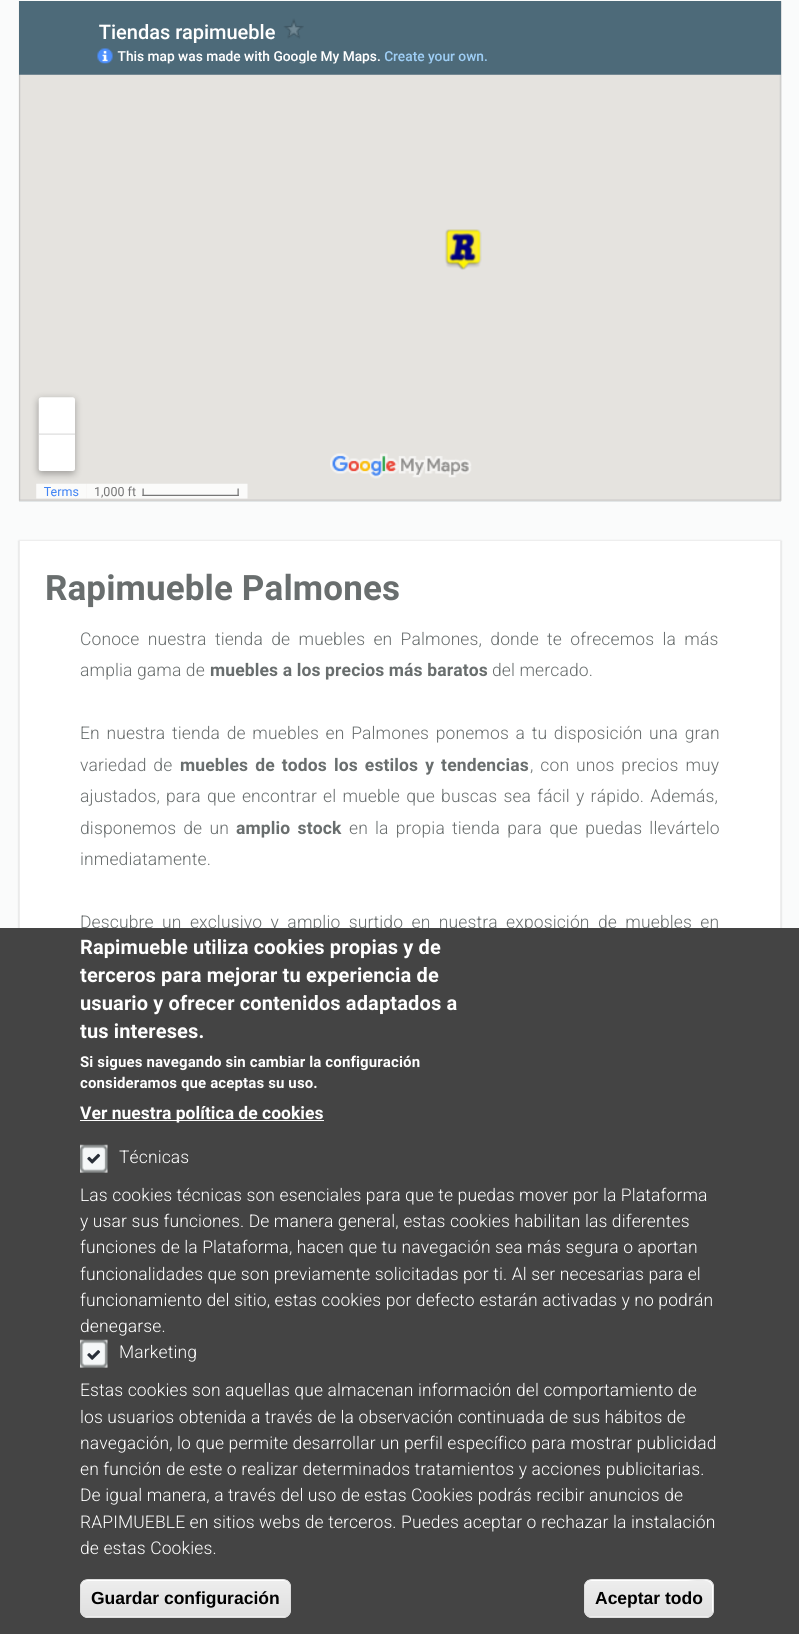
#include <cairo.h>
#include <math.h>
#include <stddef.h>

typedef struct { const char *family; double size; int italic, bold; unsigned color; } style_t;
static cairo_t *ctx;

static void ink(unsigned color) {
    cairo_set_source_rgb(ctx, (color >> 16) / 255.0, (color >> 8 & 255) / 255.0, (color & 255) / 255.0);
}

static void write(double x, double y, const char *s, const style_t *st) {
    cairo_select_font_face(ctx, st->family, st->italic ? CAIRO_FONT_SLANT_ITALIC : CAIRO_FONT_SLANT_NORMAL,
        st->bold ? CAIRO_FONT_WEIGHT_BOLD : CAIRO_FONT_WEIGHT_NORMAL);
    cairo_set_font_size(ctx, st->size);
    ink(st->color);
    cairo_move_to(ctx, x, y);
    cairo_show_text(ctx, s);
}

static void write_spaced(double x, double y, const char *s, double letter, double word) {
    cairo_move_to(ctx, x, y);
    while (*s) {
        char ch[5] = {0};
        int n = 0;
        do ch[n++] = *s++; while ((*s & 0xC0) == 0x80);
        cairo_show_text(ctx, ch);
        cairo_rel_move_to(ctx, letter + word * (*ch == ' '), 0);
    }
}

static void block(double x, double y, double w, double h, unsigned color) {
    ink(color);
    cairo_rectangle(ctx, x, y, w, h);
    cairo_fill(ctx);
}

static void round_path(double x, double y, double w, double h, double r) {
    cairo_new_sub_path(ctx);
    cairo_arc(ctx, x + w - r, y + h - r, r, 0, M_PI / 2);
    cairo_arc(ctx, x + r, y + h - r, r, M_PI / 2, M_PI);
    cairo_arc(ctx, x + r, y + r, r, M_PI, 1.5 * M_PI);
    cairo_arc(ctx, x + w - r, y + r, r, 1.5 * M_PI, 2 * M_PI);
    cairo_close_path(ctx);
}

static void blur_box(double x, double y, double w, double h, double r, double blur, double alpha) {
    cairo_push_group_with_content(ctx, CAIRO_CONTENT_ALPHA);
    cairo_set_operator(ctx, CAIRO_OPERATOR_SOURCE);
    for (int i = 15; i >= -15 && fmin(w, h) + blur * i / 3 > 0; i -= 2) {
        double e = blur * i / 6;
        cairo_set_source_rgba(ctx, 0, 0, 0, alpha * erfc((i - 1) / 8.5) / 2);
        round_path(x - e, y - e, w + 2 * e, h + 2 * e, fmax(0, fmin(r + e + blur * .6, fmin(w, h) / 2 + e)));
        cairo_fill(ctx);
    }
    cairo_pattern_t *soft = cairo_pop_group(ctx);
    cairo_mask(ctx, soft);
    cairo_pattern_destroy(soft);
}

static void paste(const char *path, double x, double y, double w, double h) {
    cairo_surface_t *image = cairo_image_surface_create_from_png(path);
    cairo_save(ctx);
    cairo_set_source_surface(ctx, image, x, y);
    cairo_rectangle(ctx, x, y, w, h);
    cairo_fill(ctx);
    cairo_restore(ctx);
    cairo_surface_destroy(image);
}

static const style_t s1 = {"Roboto", 17.5, 0, 1, 0xffffff};
static const style_t s2 = {"Liberation Sans", 17.5, 0, 1, 0x000000};

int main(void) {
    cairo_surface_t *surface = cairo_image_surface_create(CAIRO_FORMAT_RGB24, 799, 1634);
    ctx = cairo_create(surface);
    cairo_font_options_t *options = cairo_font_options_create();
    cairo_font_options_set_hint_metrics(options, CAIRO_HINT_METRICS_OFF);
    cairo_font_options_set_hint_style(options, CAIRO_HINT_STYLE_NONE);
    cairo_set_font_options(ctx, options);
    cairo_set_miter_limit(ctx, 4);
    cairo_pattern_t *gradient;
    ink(0xfafbfb);
    cairo_paint(ctx);
    paste("pic1.png", 18, 1, 764, 500);
    block(19, 501, 762, 1, 0xe2e6e7);
    ink(0x000000);
    blur_box(19, 541, 762, 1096, 0, 1, 0.2);
    block(20, 541, 760, 387, 0xffffff);
    cairo_rectangle(ctx, 19.5, 540.5, 761, 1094);
    ink(0xeeeeee);
    cairo_set_line_width(ctx, 1);
    cairo_stroke(ctx);
    cairo_select_font_face(ctx, "Roboto", CAIRO_FONT_SLANT_NORMAL, CAIRO_FONT_WEIGHT_BOLD);
    cairo_set_font_size(ctx, 35);
    ink(0x696e6e);
    write_spaced(45, 600, "Rapimueble Palmones", 0.12, 0);
    cairo_select_font_face(ctx, "Roboto Light", CAIRO_FONT_SLANT_NORMAL, CAIRO_FONT_WEIGHT_NORMAL);
    cairo_set_font_size(ctx, 17.5);
    write_spaced(80, 645, "Conoce nuestra tienda de muebles en Palmones, donde te ofrecemos la más", 0.12, 3.9);
    write_spaced(80, 676, "amplia gama de", 0.12, 0);
    cairo_select_font_face(ctx, "Roboto", CAIRO_FONT_SLANT_NORMAL, CAIRO_FONT_WEIGHT_BOLD);
    write_spaced(210, 676, "muebles a los precios más baratos", 0.12, 0);
    cairo_select_font_face(ctx, "Roboto Light", CAIRO_FONT_SLANT_NORMAL, CAIRO_FONT_WEIGHT_NORMAL);
    write_spaced(492, 676, "del mercado.", 0.12, 0);
    write_spaced(80, 739, "En nuestra tienda de muebles en Palmones ponemos a tu disposición una gran", 0.12, 2.25);
    write_spaced(80, 771, "variedad de", 0.12, 2.5);
    cairo_select_font_face(ctx, "Roboto", CAIRO_FONT_SLANT_NORMAL, CAIRO_FONT_WEIGHT_BOLD);
    write_spaced(180, 771, "muebles de todos los estilos y tendencias", 0.12, 2.5);
    cairo_select_font_face(ctx, "Roboto Light", CAIRO_FONT_SLANT_NORMAL, CAIRO_FONT_WEIGHT_NORMAL);
    write_spaced(530, 771, ", con unos precios muy", 0.12, 2.5);
    write_spaced(80, 802, "ajustados, para que encontrar el mueble que buscas sea fácil y rápido. Además,", 0.12, 1.75);
    write_spaced(80, 834, "disponemos de un", 0.12, 2.75);
    cairo_select_font_face(ctx, "Roboto", CAIRO_FONT_SLANT_NORMAL, CAIRO_FONT_WEIGHT_BOLD);
    write_spaced(236, 834, "amplio stock", 0.12, 2.75);
    cairo_select_font_face(ctx, "Roboto Light", CAIRO_FONT_SLANT_NORMAL, CAIRO_FONT_WEIGHT_NORMAL);
    write_spaced(349, 834, "en la propia tienda para que puedas llevártelo", 0.12, 2.75);
    write_spaced(80, 865, "inmediatamente.", 0.12, 0);
    write_spaced(80, 928, "Descubre un exclusivo y amplio surtido en nuestra exposición de muebles en", 0.12, 4);
    block(0, 928, 799, 706, 0x444444);
    cairo_select_font_face(ctx, "Roboto", CAIRO_FONT_SLANT_NORMAL, CAIRO_FONT_WEIGHT_BOLD);
    cairo_set_font_size(ctx, 20);
    ink(0xffffff);
    write_spaced(80, 954, "Rapimueble utiliza cookies propias y de", 0.12, 0);
    write_spaced(80, 982, "terceros para mejorar tu experiencia de", 0.12, 0);
    write_spaced(80, 1010, "usuario y ofrecer contenidos adaptados a", 0.12, 0);
    write_spaced(80, 1038, "tus intereses.", 0.12, 0);
    cairo_set_font_size(ctx, 15);
    write_spaced(80, 1067, "Si sigues navegando sin cambiar la configuración", 0.12, 0);
    write_spaced(80, 1088, "consideramos que aceptas su uso.", 0.12, 0);
    block(80, 1120, 244, 1, 0xffffff);
    write(80, 1119, "Ver nuestra política de cookies", &s1);
    paste("pic2.png", 80, 1144, 28, 29);
    cairo_select_font_face(ctx, "Roboto Light", CAIRO_FONT_SLANT_NORMAL, CAIRO_FONT_WEIGHT_NORMAL);
    write_spaced(119, 1163, "Técnicas", 0.12, 0);
    paste("pic3.png", 87, 1153, 14, 11);
    write_spaced(80, 1201, "Las cookies técnicas son esenciales para que te puedas mover por la Plataforma", 0.12, 0);
    write_spaced(80, 1227, "y usar sus funciones. De manera general, estas cookies habilitan las diferentes", 0.12, 0);
    write_spaced(80, 1253, "funciones de la Plataforma, hacen que tu navegación sea más segura o aportan", 0.12, 0);
    write_spaced(80, 1280, "funcionalidades que son previamente solicitadas por ti. Al ser necesarias para el", 0.12, 0);
    write_spaced(80, 1306, "funcionamiento del sitio, estas cookies por defecto estarán activadas y no podrán", 0.12, 0);
    write_spaced(80, 1332, "denegarse.", 0.12, 0);
    paste("pic4.png", 80, 1339, 28, 29);
    write_spaced(119, 1358, "Marketing", 0.12, 0);
    paste("pic5.png", 87, 1350, 14, 10);
    write_spaced(80, 1396, "Estas cookies son aquellas que almacenan información del comportamiento de", 0.12, 0);
    write_spaced(80, 1423, "los usuarios obtenida a través de la observación continuada de sus hábitos de", 0.12, 0);
    write_spaced(80, 1449, "navegación, lo que permite desarrollar un perfil específico para mostrar publicidad", 0.12, 0);
    write_spaced(80, 1475, "en función de este o realizar determinados tratamientos y acciones publicitarias.", 0.12, 0);
    write_spaced(80, 1501, "De igual manera, a través del uso de estas Cookies podrás recibir anuncios de", 0.12, 0);
    write_spaced(80, 1528, "RAPIMUEBLE en sitios webs de terceros. Puedes aceptar o rechazar la instalación", 0.12, 0);
    write_spaced(80, 1554, "de estas Cookies.", 0.12, 0);
    cairo_save(ctx);
    round_path(80, 1579, 211, 39, 8);
    cairo_clip(ctx);
    gradient = cairo_pattern_create_linear(186, 1580, 186, 1616);
    cairo_pattern_add_color_stop_rgba(gradient, 0.05, 0.929, 0.929, 0.929, 1);
    cairo_pattern_add_color_stop_rgba(gradient, 1, 0.875, 0.875, 0.875, 1);
    cairo_set_source(ctx, gradient);
    cairo_pattern_destroy(gradient);
    cairo_rectangle(ctx, 80, 1580, 211, 36);
    cairo_fill(ctx);
    gradient = cairo_pattern_create_linear(186, 1616, 186, 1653);
    cairo_pattern_add_color_stop_rgba(gradient, 0.05, 0.929, 0.929, 0.929, 1);
    cairo_pattern_add_color_stop_rgba(gradient, 1, 0.875, 0.875, 0.875, 1);
    cairo_set_source(ctx, gradient);
    cairo_pattern_destroy(gradient);
    cairo_rectangle(ctx, 80, 1616, 211, 2);
    cairo_fill(ctx);
    cairo_restore(ctx);
    cairo_new_path(ctx);
    cairo_move_to(ctx, 88, 1581);
    cairo_line_to(ctx, 284, 1581);
    cairo_curve_to(ctx, 287, 1581, 290, 1584, 290, 1588);
    cairo_line_to(ctx, 290, 1586);
    cairo_curve_to(ctx, 290, 1583, 287, 1580, 284, 1580);
    cairo_line_to(ctx, 87, 1580);
    cairo_curve_to(ctx, 84, 1580, 81, 1583, 81, 1586);
    cairo_line_to(ctx, 81, 1588);
    cairo_curve_to(ctx, 81, 1584, 84, 1581, 88, 1581);
    cairo_close_path(ctx);
    cairo_fill(ctx);
    round_path(80.5, 1579.5, 210, 38, 7.5);
    ink(0xdcdcdc);
    cairo_stroke(ctx);
    write(91, 1604, "Guardar configuración", &s2);
    cairo_save(ctx);
    round_path(584, 1579, 130, 39, 8);
    cairo_clip(ctx);
    gradient = cairo_pattern_create_linear(649, 1580, 649, 1616);
    cairo_pattern_add_color_stop_rgba(gradient, 0.05, 0.929, 0.929, 0.929, 1);
    cairo_pattern_add_color_stop_rgba(gradient, 1, 0.875, 0.875, 0.875, 1);
    cairo_set_source(ctx, gradient);
    cairo_pattern_destroy(gradient);
    cairo_rectangle(ctx, 584, 1580, 130, 36);
    cairo_fill(ctx);
    gradient = cairo_pattern_create_linear(649, 1616, 649, 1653);
    cairo_pattern_add_color_stop_rgba(gradient, 0.05, 0.929, 0.929, 0.929, 1);
    cairo_pattern_add_color_stop_rgba(gradient, 1, 0.875, 0.875, 0.875, 1);
    cairo_set_source(ctx, gradient);
    cairo_pattern_destroy(gradient);
    cairo_rectangle(ctx, 584, 1616, 130, 2);
    cairo_fill(ctx);
    cairo_restore(ctx);
    ink(0xffffff);
    cairo_new_path(ctx);
    cairo_move_to(ctx, 591, 1581);
    cairo_line_to(ctx, 687, 1581);
    cairo_curve_to(ctx, 691, 1581, 711, 1576, 712, 1587);
    cairo_line_to(ctx, 712, 1614);
    cairo_curve_to(ctx, 712, 1613, 713, 1611, 713, 1610);
    cairo_line_to(ctx, 713, 1586);
    cairo_curve_to(ctx, 713, 1583, 710, 1580, 707, 1580);
    cairo_line_to(ctx, 591, 1580);
    cairo_curve_to(ctx, 588, 1580, 585, 1583, 585, 1586);
    cairo_line_to(ctx, 585, 1588);
    cairo_curve_to(ctx, 585, 1584, 588, 1581, 591, 1581);
    cairo_close_path(ctx);
    cairo_fill(ctx);
    round_path(584.5, 1579.5, 129, 38, 7.5);
    ink(0xdcdcdc);
    cairo_stroke(ctx);
    write(595, 1604, "Aceptar todo", &s2);
    cairo_surface_write_to_png(surface, "screenshot.png");
    cairo_font_options_destroy(options);
    cairo_destroy(ctx);
    cairo_surface_destroy(surface);
    return 0;
}
